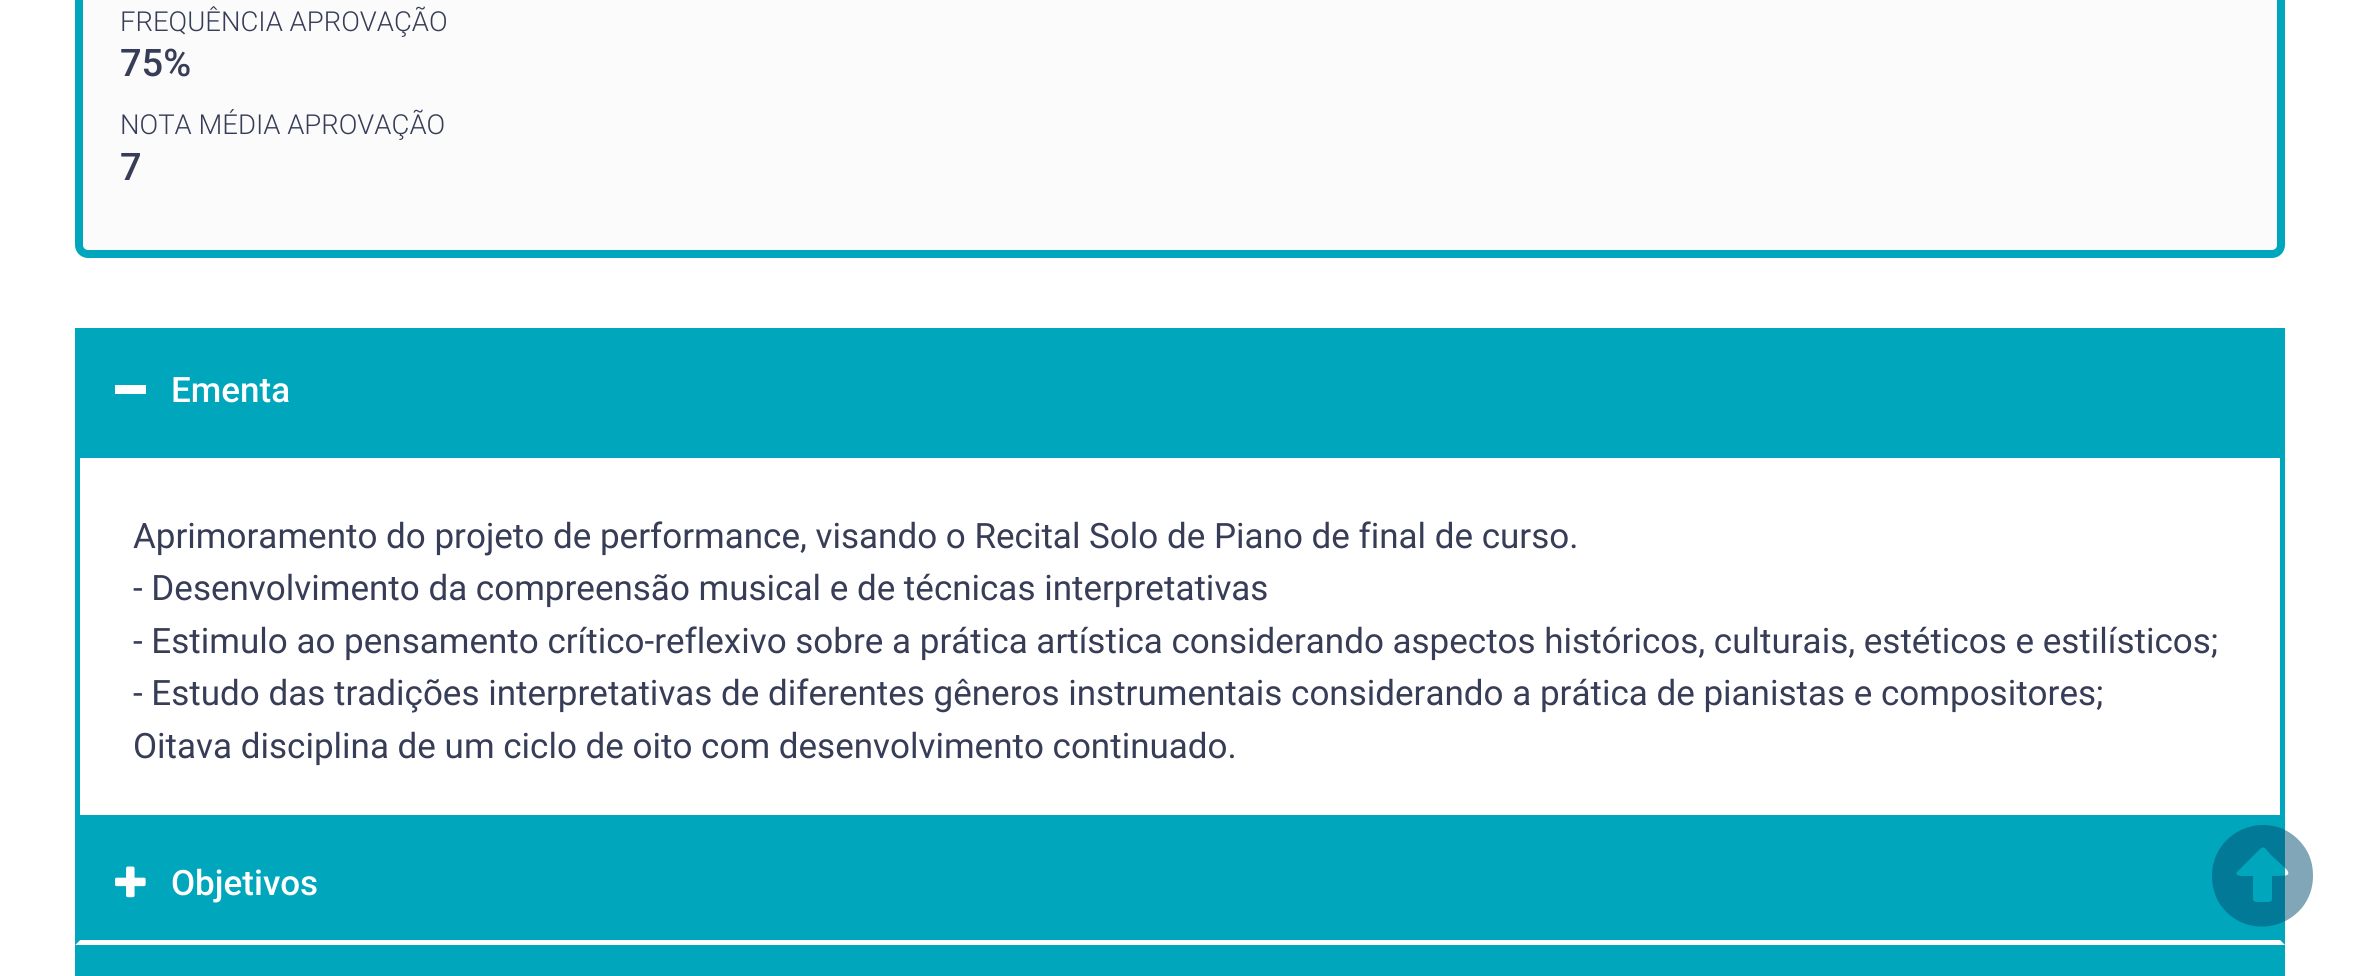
#include <cairo.h>
#include <math.h>
#include <stddef.h>

typedef struct { const char *family; double size; int italic, bold; unsigned color; } style_t;
static cairo_t *ctx;

static void ink(unsigned color) {
    cairo_set_source_rgb(ctx, (color >> 16) / 255.0, (color >> 8 & 255) / 255.0, (color & 255) / 255.0);
}

static void write(double x, double y, const char *s, const style_t *st) {
    cairo_select_font_face(ctx, st->family, st->italic ? CAIRO_FONT_SLANT_ITALIC : CAIRO_FONT_SLANT_NORMAL,
        st->bold ? CAIRO_FONT_WEIGHT_BOLD : CAIRO_FONT_WEIGHT_NORMAL);
    cairo_set_font_size(ctx, st->size);
    ink(st->color);
    cairo_move_to(ctx, x, y);
    cairo_show_text(ctx, s);
}

static void block(double x, double y, double w, double h, unsigned color) {
    ink(color);
    cairo_rectangle(ctx, x, y, w, h);
    cairo_fill(ctx);
}

static void round_path(double x, double y, double w, double h, double r) {
    cairo_new_sub_path(ctx);
    cairo_arc(ctx, x + w - r, y + h - r, r, 0, M_PI / 2);
    cairo_arc(ctx, x + r, y + h - r, r, M_PI / 2, M_PI);
    cairo_arc(ctx, x + r, y + r, r, M_PI, 1.5 * M_PI);
    cairo_arc(ctx, x + w - r, y + r, r, 1.5 * M_PI, 2 * M_PI);
    cairo_close_path(ctx);
}

static void paste(const char *path, double x, double y, double w, double h) {
    cairo_surface_t *image = cairo_image_surface_create_from_png(path);
    cairo_save(ctx);
    cairo_set_source_surface(ctx, image, x, y);
    cairo_rectangle(ctx, x, y, w, h);
    cairo_fill(ctx);
    cairo_restore(ctx);
    cairo_surface_destroy(image);
}

static const style_t s1 = {"Roboto Light", 27.5, 0, 0, 0x373d57};
static const style_t s2 = {"Roboto Medium", 38, 0, 0, 0x373d57};
static const style_t s3 = {"Roboto Medium", 35, 0, 0, 0xffffff};
static const style_t s4 = {"Roboto", 35, 0, 0, 0x373d57};

int main(void) {
    cairo_surface_t *surface = cairo_image_surface_create(CAIRO_FORMAT_RGB24, 2358, 976);
    ctx = cairo_create(surface);
    cairo_font_options_t *options = cairo_font_options_create();
    cairo_font_options_set_hint_metrics(options, CAIRO_HINT_METRICS_OFF);
    cairo_font_options_set_hint_style(options, CAIRO_HINT_STYLE_NONE);
    cairo_set_font_options(ctx, options);
    cairo_set_miter_limit(ctx, 4);
    ink(0xffffff);
    cairo_paint(ctx);
    ink(0xfbfbfb);
    round_path(79, -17, 2202, 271, 9);
    cairo_fill_preserve(ctx);
    ink(0x00a6bc);
    cairo_set_line_width(ctx, 8);
    cairo_stroke(ctx);
    write(120, 31, "FREQUÊNCIA APROVAÇÃO", &s1);
    write(120, 76, "75%", &s2);
    write(120, 134, "NOTA MÉDIA APROVAÇÃO", &s1);
    write(120, 180, "7", &s2);
    block(75, 328, 2210, 125, 0x00a6bc);
    block(115, 385, 31, 9, 0xffffff);
    write(171, 402, "Ementa", &s3);
    cairo_rectangle(ctx, 77.5, 455.5, 2205, 362);
    ink(0x00a6bc);
    cairo_set_line_width(ctx, 5);
    cairo_stroke(ctx);
    write(133, 548, "Aprimoramento do projeto de performance, visando o Recital Solo de Piano de final de curso.", &s4);
    write(133, 600, "- Desenvolvimento da compreensão musical e de técnicas interpretativas", &s4);
    write(133, 653, "- Estimulo ao pensamento crítico-reflexivo sobre a prática artística considerando aspectos históricos, culturais, estéticos e estilísticos;", &s4);
    write(133, 705, "- Estudo das tradições interpretativas de diferentes gêneros instrumentais considerando a prática de pianistas e compositores;", &s4);
    write(133, 758, "Oitava disciplina de um ciclo de oito com desenvolvimento continuado.", &s4);
    block(75, 820, 2210, 156, 0x00a6bc);
    ink(0xffffff);
    cairo_new_path(ctx);
    cairo_move_to(ctx, 2285, 945);
    cairo_line_to(ctx, 75, 945);
    cairo_line_to(ctx, 80, 940);
    cairo_line_to(ctx, 2280, 940);
    cairo_close_path(ctx);
    cairo_fill(ctx);
    ink(0x00a6bc);
    cairo_new_path(ctx);
    cairo_move_to(ctx, 75, 945);
    cairo_line_to(ctx, 75, 820);
    cairo_line_to(ctx, 80, 825);
    cairo_line_to(ctx, 80, 940);
    cairo_close_path(ctx);
    cairo_fill(ctx);
    paste("pic1.png", 115, 866, 31, 32);
    write(171, 895, "Objetivos", &s3);
    cairo_set_source_rgba(ctx, 0.02, 0.31, 0.447, 0.5);
    cairo_new_path(ctx);
    cairo_move_to(ctx, 2212, 876);
    cairo_curve_to(ctx, 2212, 828, 2273, 806, 2303, 845);
    cairo_curve_to(ctx, 2310, 854, 2313, 864, 2313, 876);
    cairo_curve_to(ctx, 2313, 924, 2252, 945, 2222, 907);
    cairo_curve_to(ctx, 2215, 898, 2212, 887, 2212, 876);
    cairo_close_path(ctx);
    cairo_move_to(ctx, 2272, 899);
    cairo_line_to(ctx, 2272, 876);
    cairo_curve_to(ctx, 2274, 876, 2286, 876, 2287, 875);
    cairo_curve_to(ctx, 2291, 873, 2285, 868, 2284, 867);
    cairo_line_to(ctx, 2272, 856);
    cairo_curve_to(ctx, 2263, 847, 2265, 844, 2257, 852);
    cairo_line_to(ctx, 2237, 872);
    cairo_curve_to(ctx, 2234, 876, 2242, 876, 2244, 876);
    cairo_line_to(ctx, 2253, 876);
    cairo_line_to(ctx, 2253, 895);
    cairo_curve_to(ctx, 2253, 901, 2253, 902, 2258, 902);
    cairo_line_to(ctx, 2267, 902);
    cairo_curve_to(ctx, 2269, 902, 2272, 902, 2272, 899);
    cairo_close_path(ctx);
    cairo_fill(ctx);
    cairo_surface_write_to_png(surface, "screenshot.png");
    cairo_font_options_destroy(options);
    cairo_destroy(ctx);
    cairo_surface_destroy(surface);
    return 0;
}
